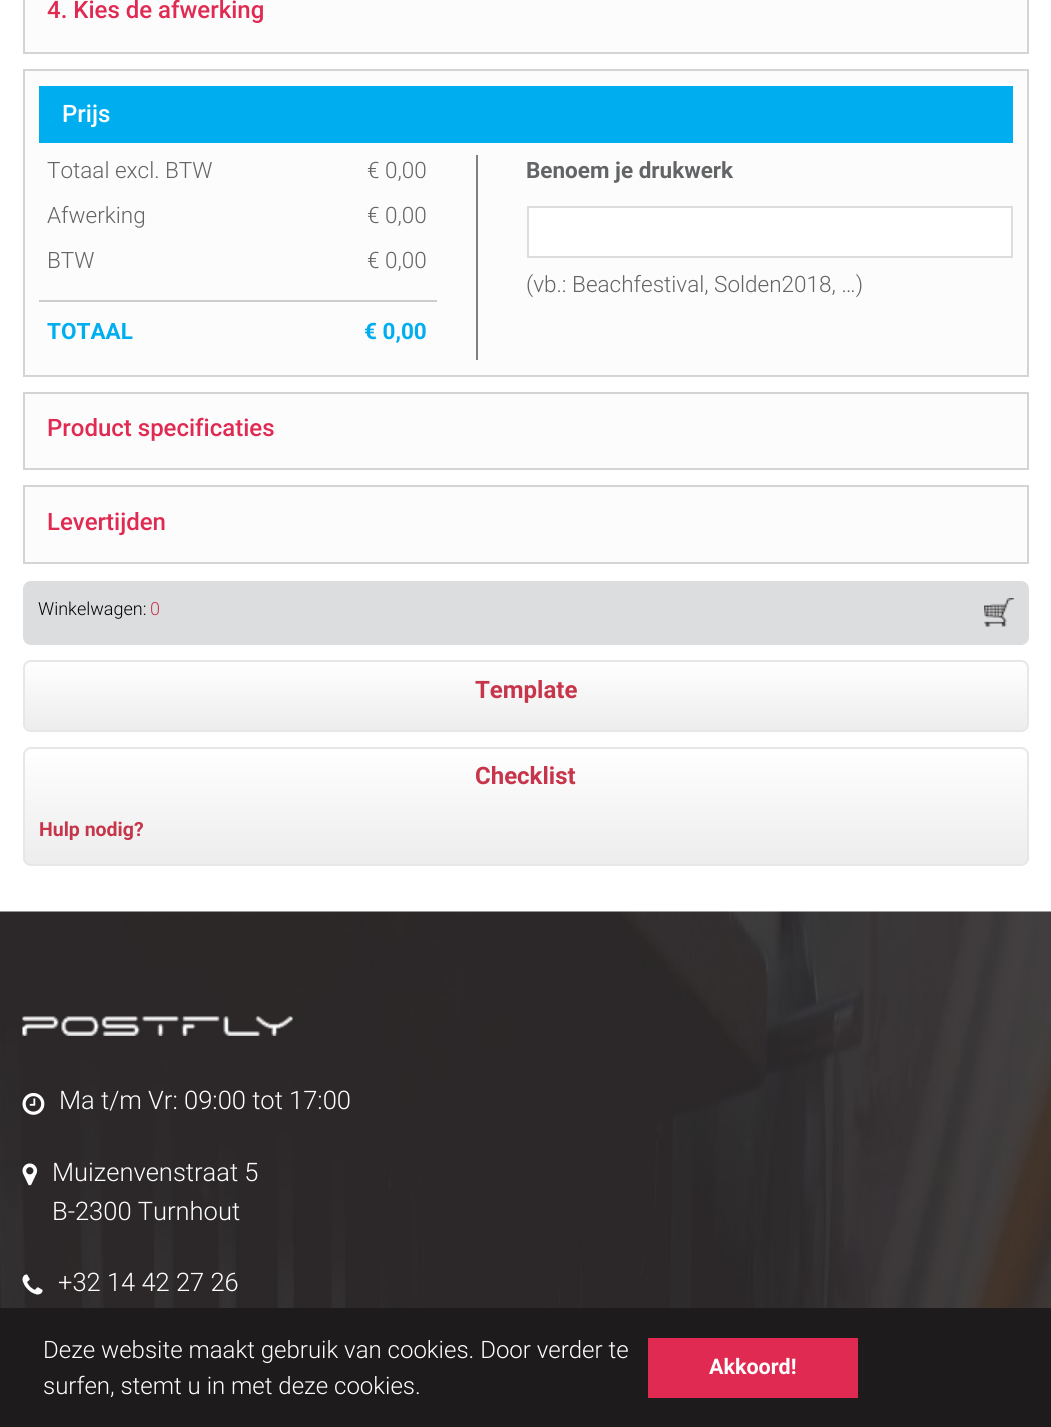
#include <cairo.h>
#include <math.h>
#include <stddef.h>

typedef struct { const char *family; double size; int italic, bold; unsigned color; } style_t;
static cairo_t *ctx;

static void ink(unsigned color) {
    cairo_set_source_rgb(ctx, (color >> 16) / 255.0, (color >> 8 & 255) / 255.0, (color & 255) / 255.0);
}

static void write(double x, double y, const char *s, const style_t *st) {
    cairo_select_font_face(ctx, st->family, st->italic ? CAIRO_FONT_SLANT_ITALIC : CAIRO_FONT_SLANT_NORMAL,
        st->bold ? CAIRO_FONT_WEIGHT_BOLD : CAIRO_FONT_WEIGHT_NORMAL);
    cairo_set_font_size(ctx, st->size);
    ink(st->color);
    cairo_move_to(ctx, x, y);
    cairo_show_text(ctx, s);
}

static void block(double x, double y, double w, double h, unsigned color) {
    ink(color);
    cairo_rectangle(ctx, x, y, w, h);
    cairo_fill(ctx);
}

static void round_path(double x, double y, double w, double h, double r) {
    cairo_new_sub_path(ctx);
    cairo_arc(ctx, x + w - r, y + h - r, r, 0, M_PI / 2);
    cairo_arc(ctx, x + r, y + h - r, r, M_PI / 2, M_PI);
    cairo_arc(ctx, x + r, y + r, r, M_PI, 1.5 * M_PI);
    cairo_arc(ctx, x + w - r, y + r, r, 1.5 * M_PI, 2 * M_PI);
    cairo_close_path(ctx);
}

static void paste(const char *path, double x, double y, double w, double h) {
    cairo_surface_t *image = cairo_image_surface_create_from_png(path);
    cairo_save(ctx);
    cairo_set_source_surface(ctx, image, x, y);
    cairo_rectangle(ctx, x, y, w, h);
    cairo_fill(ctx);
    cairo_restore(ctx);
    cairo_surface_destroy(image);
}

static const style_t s1 = {"Roboto Medium", 24, 0, 0, 0xe02a51};
static const style_t s2 = {"Roboto Medium", 24, 0, 0, 0xffffff};
static const style_t s3 = {"Roboto Light", 22.5, 0, 0, 0x636466};
static const style_t s4 = {"Roboto", 22.5, 0, 1, 0x00aeef};
static const style_t s5 = {"Roboto", 22.5, 0, 1, 0x636466};
static const style_t s6 = {"Roboto Light", 18, 0, 0, 0x000000};
static const style_t s7 = {"Roboto Light", 18, 0, 0, 0xc7354b};
static const style_t s8 = {"Roboto", 24, 0, 1, 0xc7354b};
static const style_t s9 = {"Roboto", 19.5, 0, 1, 0xc7354b};
static const style_t s10 = {"Roboto Light", 25.5, 0, 0, 0xffffff};
static const style_t s11 = {"Roboto Light", 24, 0, 0, 0xffffff};
static const style_t s12 = {"Roboto", 21.5, 0, 1, 0xffffff};

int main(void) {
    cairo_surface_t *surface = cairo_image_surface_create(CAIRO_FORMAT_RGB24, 1051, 1427);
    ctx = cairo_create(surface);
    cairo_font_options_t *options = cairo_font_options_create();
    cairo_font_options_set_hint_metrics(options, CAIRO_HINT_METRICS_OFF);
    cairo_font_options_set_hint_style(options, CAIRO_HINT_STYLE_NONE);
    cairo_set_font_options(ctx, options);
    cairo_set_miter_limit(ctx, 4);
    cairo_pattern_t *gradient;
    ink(0xffffff);
    cairo_paint(ctx);
    ink(0xfcfcfc);
    cairo_rectangle(ctx, 24, -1, 1004, 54);
    cairo_fill_preserve(ctx);
    ink(0xd4d4d4);
    cairo_stroke(ctx);
    write(47, 18, "4. Kies de afwerking", &s1);
    ink(0xfcfcfc);
    cairo_rectangle(ctx, 24, 70, 1004, 306);
    cairo_fill_preserve(ctx);
    ink(0xd4d4d4);
    cairo_stroke(ctx);
    block(39, 86, 974, 57, 0x00aeef);
    write(62, 122, "Prijs", &s2);
    block(476, 155, 2, 205, 0x808080);
    write(47, 178, "Totaal excl. BTW", &s3);
    write(367, 178, "€ 0,00", &s3);
    write(47, 223, "Afwerking", &s3);
    write(367, 223, "€ 0,00", &s3);
    write(47, 268, "BTW", &s3);
    write(367, 268, "€ 0,00", &s3);
    block(39, 300, 398, 2, 0xcccccc);
    write(47, 339, "TOTAAL", &s4);
    write(364, 339, "€ 0,00", &s4);
    write(526, 178, "Benoem je drukwerk", &s5);
    ink(0xffffff);
    cairo_rectangle(ctx, 528, 207, 484, 50);
    cairo_fill_preserve(ctx);
    ink(0xdddddd);
    cairo_stroke(ctx);
    write(526, 292, "(vb.: Beachfestival, Solden2018, …)", &s3);
    ink(0xfcfcfc);
    cairo_rectangle(ctx, 24, 393, 1004, 76);
    cairo_fill_preserve(ctx);
    ink(0xd4d4d4);
    cairo_stroke(ctx);
    write(47, 436, "Product specificaties", &s1);
    ink(0xfcfcfc);
    cairo_rectangle(ctx, 24, 486, 1004, 77);
    cairo_fill_preserve(ctx);
    ink(0xd4d4d4);
    cairo_stroke(ctx);
    write(47, 530, "Levertijden", &s1);
    ink(0xdcddde);
    round_path(23, 581, 1006, 64, 8);
    cairo_fill(ctx);
    paste("pic1.png", 984, 598, 30, 29);
    write(38, 615, "Winkelwagen:", &s6);
    write(150, 615, "0", &s7);
    cairo_save(ctx);
    round_path(23, 660, 1006, 72, 8);
    cairo_clip(ctx);
    gradient = cairo_pattern_create_linear(526, 661, 526, 731);
    cairo_pattern_add_color_stop_rgba(gradient, 0, 1, 1, 1, 1);
    cairo_pattern_add_color_stop_rgba(gradient, 0.47, 0.965, 0.965, 0.965, 1);
    cairo_pattern_add_color_stop_rgba(gradient, 1, 0.929, 0.929, 0.929, 1);
    cairo_set_source(ctx, gradient);
    cairo_pattern_destroy(gradient);
    cairo_rectangle(ctx, 23, 662, 1006, 69);
    cairo_fill(ctx);
    cairo_restore(ctx);
    round_path(24, 661, 1004, 70, 7);
    ink(0xe7e7e8);
    cairo_stroke(ctx);
    write(475, 698, "Template", &s8);
    cairo_save(ctx);
    round_path(23, 747, 1006, 119, 8);
    cairo_clip(ctx);
    gradient = cairo_pattern_create_linear(526, 748, 526, 864);
    cairo_pattern_add_color_stop_rgba(gradient, 0, 1, 1, 1, 1);
    cairo_pattern_add_color_stop_rgba(gradient, 0.47, 0.965, 0.965, 0.965, 1);
    cairo_pattern_add_color_stop_rgba(gradient, 1, 0.929, 0.929, 0.929, 1);
    cairo_set_source(ctx, gradient);
    cairo_pattern_destroy(gradient);
    cairo_rectangle(ctx, 23, 749, 1006, 115);
    cairo_fill(ctx);
    cairo_restore(ctx);
    round_path(24, 748, 1004, 117, 7);
    ink(0xe7e7e8);
    cairo_stroke(ctx);
    write(475, 784, "Checklist", &s8);
    write(39, 836, "Hulp nodig?", &s9);
    paste("pic2.png", 0, 911, 1051, 397);
    paste("pic3.png", 22, 1016, 271, 20);
    paste("pic4.png", 22, 1093, 23, 22);
    write(59, 1109, "Ma t/m Vr: 09:00 tot 17:00", &s10);
    paste("pic5.png", 22, 1163, 16, 23);
    write(52, 1181, "Muizenvenstraat 5", &s10);
    write(52, 1220, "B-2300 Turnhout", &s10);
    paste("pic6.png", 22, 1274, 21, 21);
    write(58, 1291, "+32 14 42 27 26", &s10);
    block(0, 1308, 1051, 119, 0x1d1b1b);
    write(43, 1358, "Deze website maakt gebruik van cookies. Door verder te", &s11);
    write(43, 1394, "surfen, stemt u in met deze cookies.", &s11);
    block(648, 1338, 210, 60, 0xe02a51);
    write(709, 1374, "Akkoord!", &s12);
    cairo_surface_write_to_png(surface, "screenshot.png");
    cairo_font_options_destroy(options);
    cairo_destroy(ctx);
    cairo_surface_destroy(surface);
    return 0;
}
